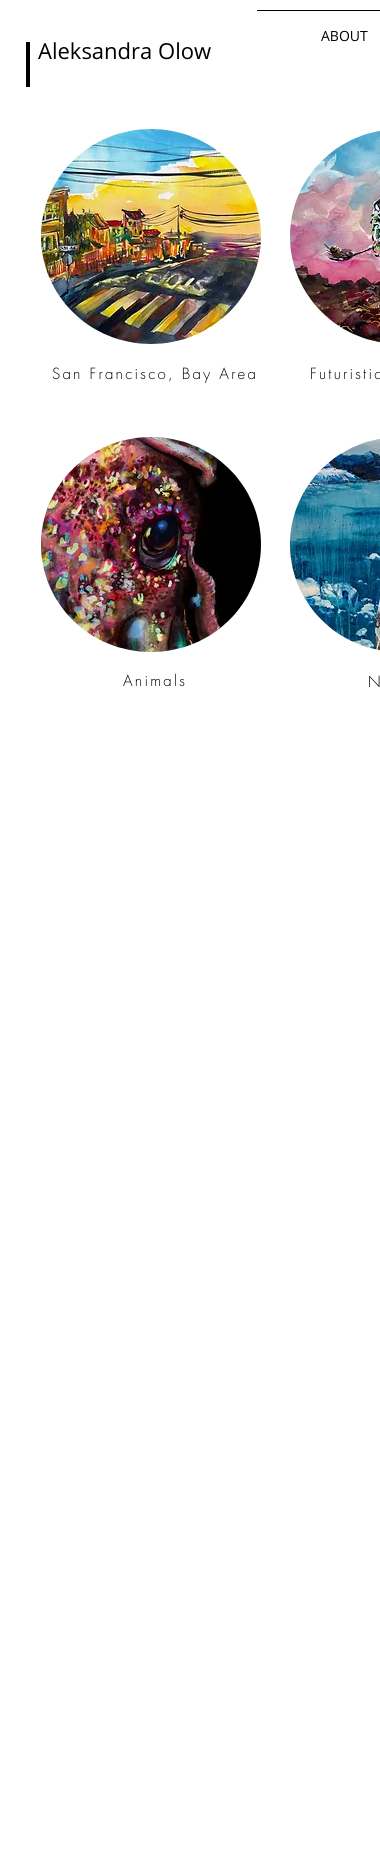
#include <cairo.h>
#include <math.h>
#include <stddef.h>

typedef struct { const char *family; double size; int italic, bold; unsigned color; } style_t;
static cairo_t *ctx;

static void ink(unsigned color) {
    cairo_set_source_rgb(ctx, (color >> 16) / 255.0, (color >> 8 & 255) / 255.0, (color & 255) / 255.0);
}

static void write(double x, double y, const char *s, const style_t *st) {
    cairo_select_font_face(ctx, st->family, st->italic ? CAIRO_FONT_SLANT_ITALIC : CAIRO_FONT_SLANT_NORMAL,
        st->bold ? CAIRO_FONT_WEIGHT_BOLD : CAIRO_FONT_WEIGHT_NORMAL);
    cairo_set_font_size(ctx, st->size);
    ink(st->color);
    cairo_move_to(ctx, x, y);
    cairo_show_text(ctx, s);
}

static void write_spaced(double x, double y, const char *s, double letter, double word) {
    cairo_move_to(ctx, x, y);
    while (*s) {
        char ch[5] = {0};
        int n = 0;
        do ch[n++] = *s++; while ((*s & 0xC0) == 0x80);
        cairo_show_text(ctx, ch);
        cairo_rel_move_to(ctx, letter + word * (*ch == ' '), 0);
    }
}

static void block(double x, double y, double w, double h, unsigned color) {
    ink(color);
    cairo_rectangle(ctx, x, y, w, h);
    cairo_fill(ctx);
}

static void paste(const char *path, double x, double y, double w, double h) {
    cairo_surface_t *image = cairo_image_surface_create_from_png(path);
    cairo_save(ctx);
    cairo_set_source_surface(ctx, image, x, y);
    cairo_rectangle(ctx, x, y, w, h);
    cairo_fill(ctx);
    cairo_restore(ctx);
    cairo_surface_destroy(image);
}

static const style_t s1 = {"Open Sans", 14, 0, 0, 0x000000};
static const style_t s2 = {"Open Sans", 22, 0, 0, 0x000000};

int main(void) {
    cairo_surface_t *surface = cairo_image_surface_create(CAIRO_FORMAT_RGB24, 380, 1857);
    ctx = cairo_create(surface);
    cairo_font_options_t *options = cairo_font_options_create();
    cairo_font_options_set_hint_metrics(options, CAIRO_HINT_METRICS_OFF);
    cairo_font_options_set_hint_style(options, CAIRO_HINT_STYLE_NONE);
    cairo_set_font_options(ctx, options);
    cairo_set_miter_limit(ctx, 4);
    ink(0xffffff);
    cairo_paint(ctx);
    block(257, 10, 123, 1, 0x000000);
    write(321, 41, "ABOUT", &s1);
    block(26, 42, 4, 45, 0x000000);
    write(38, 59, "Aleksandra Olow", &s2);
    paste("pic1.png", 41, 129, 220, 215);
    cairo_select_font_face(ctx, "futura Light", CAIRO_FONT_SLANT_NORMAL, CAIRO_FONT_WEIGHT_NORMAL);
    cairo_set_font_size(ctx, 15);
    write_spaced(52, 379, "San Francisco, Bay Area", 2.25, 0);
    paste("pic2.png", 41, 437, 220, 215);
    write_spaced(123, 686, "Animals", 2.25, 0);
    paste("pic3.png", 290, 130, 90, 213);
    write_spaced(310, 379, "Futuristic", 2.25, 0);
    paste("pic4.png", 290, 439, 90, 212);
    write_spaced(368, 687, "N", 2.25, 0);
    cairo_surface_write_to_png(surface, "screenshot.png");
    cairo_font_options_destroy(options);
    cairo_destroy(ctx);
    cairo_surface_destroy(surface);
    return 0;
}
